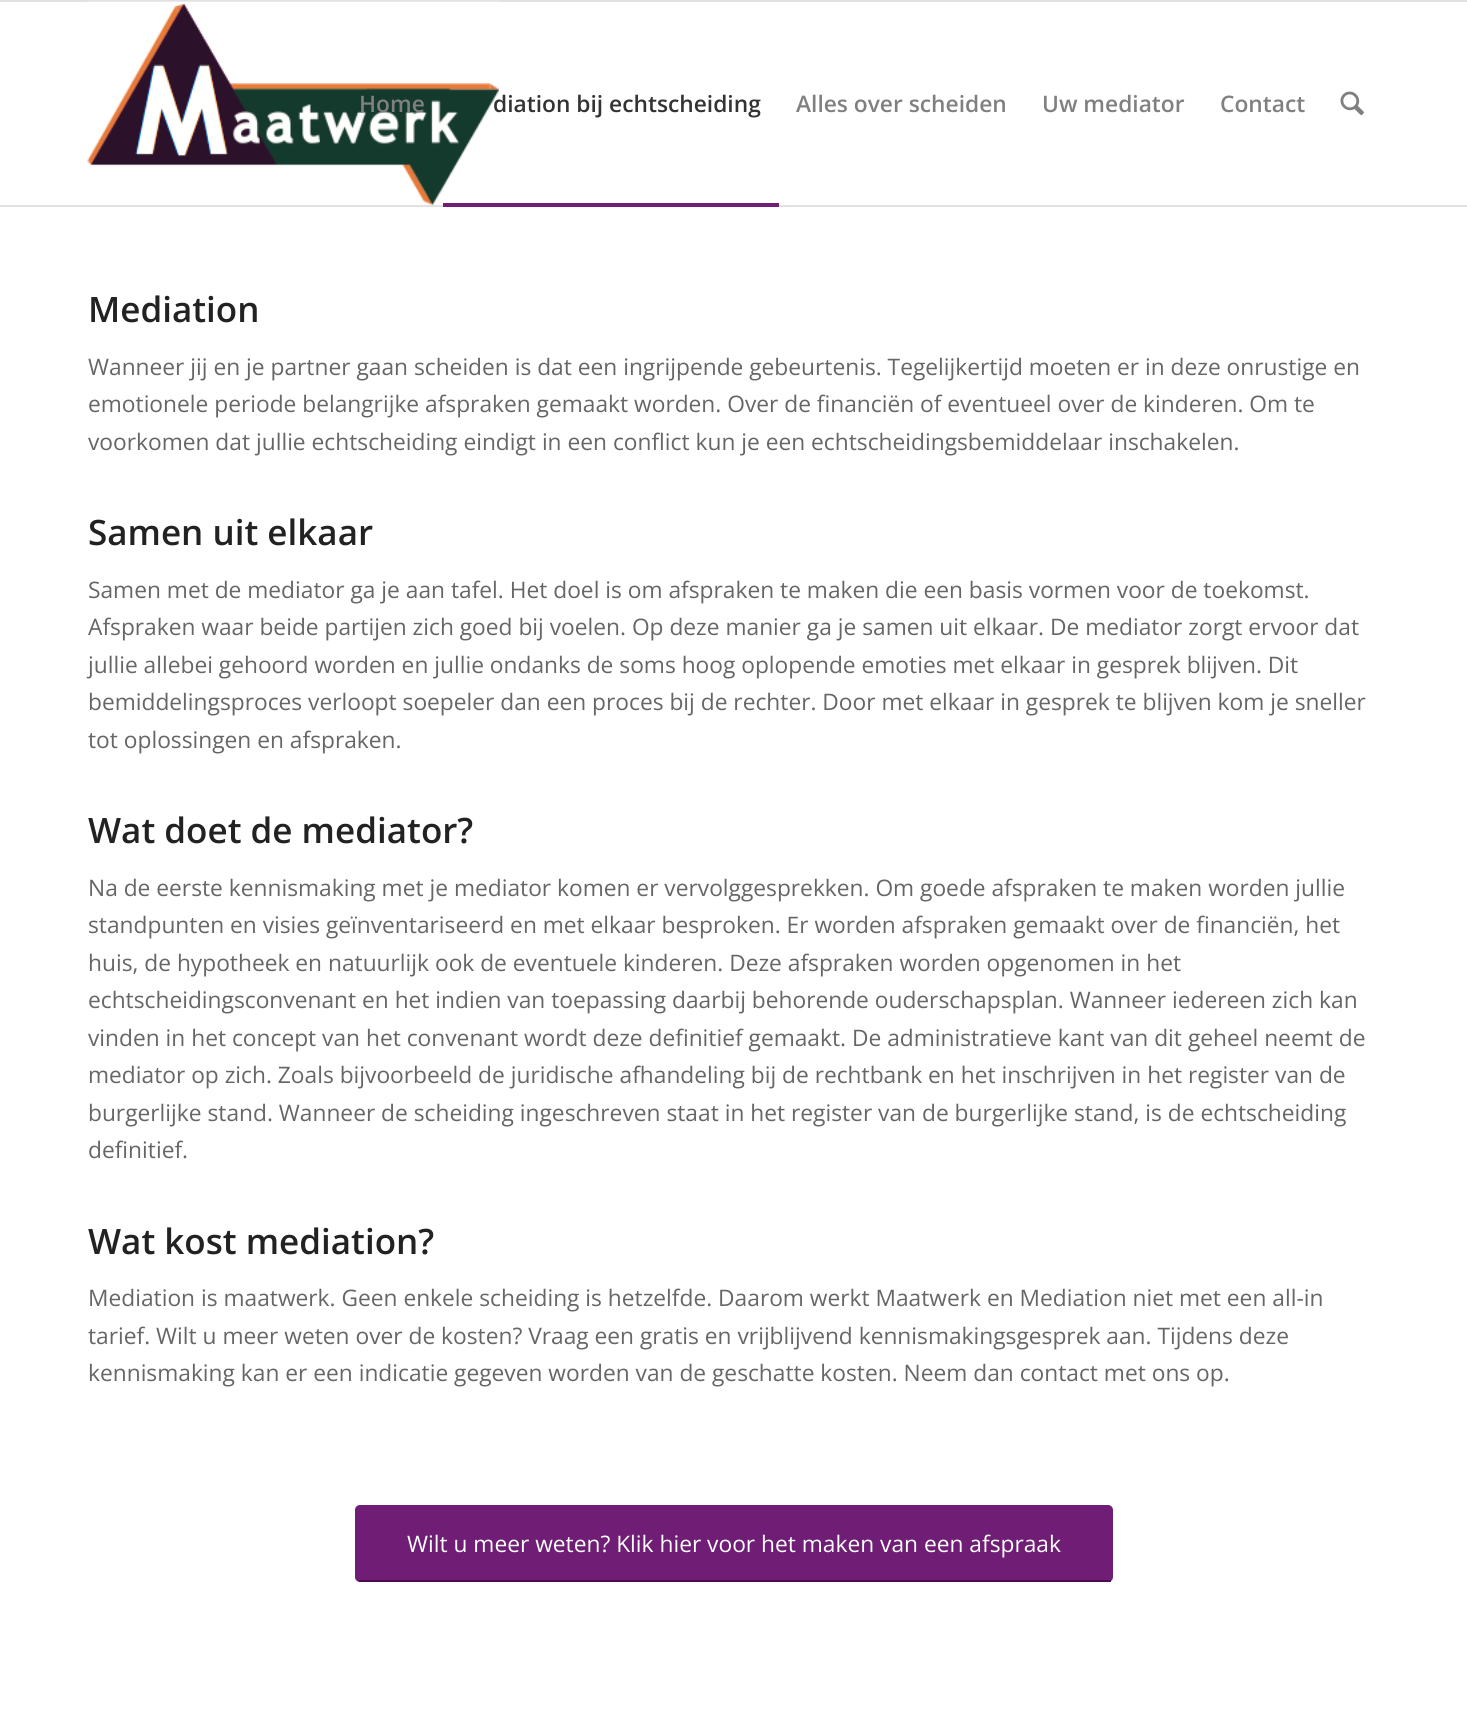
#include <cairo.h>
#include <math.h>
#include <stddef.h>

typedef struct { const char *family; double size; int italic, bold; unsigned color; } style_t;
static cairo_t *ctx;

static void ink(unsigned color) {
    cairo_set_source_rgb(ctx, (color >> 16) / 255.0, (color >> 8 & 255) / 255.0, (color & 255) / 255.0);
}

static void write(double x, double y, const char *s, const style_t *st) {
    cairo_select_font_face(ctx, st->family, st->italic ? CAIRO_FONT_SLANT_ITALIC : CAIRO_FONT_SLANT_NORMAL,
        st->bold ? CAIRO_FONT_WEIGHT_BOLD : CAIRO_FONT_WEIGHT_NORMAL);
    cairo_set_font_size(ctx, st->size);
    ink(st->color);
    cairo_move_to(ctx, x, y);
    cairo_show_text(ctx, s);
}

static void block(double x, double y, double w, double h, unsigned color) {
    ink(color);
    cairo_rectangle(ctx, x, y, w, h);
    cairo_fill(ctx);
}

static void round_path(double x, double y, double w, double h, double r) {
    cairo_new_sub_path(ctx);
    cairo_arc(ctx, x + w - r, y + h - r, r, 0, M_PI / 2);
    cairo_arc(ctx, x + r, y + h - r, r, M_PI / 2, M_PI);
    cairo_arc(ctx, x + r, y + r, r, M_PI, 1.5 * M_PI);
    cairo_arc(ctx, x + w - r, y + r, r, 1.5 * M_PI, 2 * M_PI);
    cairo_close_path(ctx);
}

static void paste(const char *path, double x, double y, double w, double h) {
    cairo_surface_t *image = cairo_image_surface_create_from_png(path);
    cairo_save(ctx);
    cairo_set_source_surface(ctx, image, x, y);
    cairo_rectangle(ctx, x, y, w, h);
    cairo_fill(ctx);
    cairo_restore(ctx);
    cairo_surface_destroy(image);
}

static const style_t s1 = {"Open Sans SemiBold", 22.75, 0, 0, 0x808080};
static const style_t s2 = {"Open Sans SemiBold", 22.75, 0, 0, 0x333333};
static const style_t s3 = {"Open Sans SemiBold", 35, 0, 0, 0x222222};
static const style_t s4 = {"Open Sans", 22.75, 0, 0, 0x666666};
static const style_t s5 = {"Open Sans", 22.75, 0, 0, 0xffffff};

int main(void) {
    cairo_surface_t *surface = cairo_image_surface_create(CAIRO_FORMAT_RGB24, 1467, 1720);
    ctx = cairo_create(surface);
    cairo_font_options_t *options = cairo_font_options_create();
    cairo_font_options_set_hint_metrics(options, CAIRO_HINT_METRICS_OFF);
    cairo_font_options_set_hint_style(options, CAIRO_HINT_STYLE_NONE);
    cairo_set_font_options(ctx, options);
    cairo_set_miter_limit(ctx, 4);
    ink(0xffffff);
    cairo_paint(ctx);
    block(0, 0, 1467, 2, 0xe1e1e1);
    block(0, 205, 1467, 2, 0xe1e1e1);
    paste("pic1.png", 87, 1, 412, 204);
    write(359, 112, "Home", &s1);
    write(493, 112, "diation bij echtscheiding", &s2);
    block(443, 203, 336, 4, 0x6f1d75);
    write(796, 112, "Alles over scheiden", &s1);
    write(1042, 112, "Uw mediator", &s1);
    write(1220, 112, "Contact", &s1);
    paste("pic2.png", 1340, 91, 24, 25);
    write(88, 322, "Mediation", &s3);
    write(88, 375, "Wanneer jij en je partner gaan scheiden is dat een ingrijpende gebeurtenis. Tegelijkertijd moeten er in deze onrustige en", &s4);
    write(88, 412, "emotionele periode belangrijke afspraken gemaakt worden. Over de financiën of eventueel over de kinderen. Om te", &s4);
    write(88, 450, "voorkomen dat jullie echtscheiding eindigt in een conflict kun je een echtscheidingsbemiddelaar inschakelen.", &s4);
    write(88, 545, "Samen uit elkaar", &s3);
    write(88, 598, "Samen met de mediator ga je aan tafel. Het doel is om afspraken te maken die een basis vormen voor de toekomst.", &s4);
    write(88, 635, "Afspraken waar beide partijen zich goed bij voelen. Op deze manier ga je samen uit elkaar. De mediator zorgt ervoor dat", &s4);
    write(88, 673, "jullie allebei gehoord worden en jullie ondanks de soms hoog oplopende emoties met elkaar in gesprek blijven. Dit", &s4);
    write(88, 710, "bemiddelingsproces verloopt soepeler dan een proces bij de rechter. Door met elkaar in gesprek te blijven kom je sneller", &s4);
    write(88, 748, "tot oplossingen en afspraken.", &s4);
    write(88, 843, "Wat doet de mediator?", &s3);
    write(88, 896, "Na de eerste kennismaking met je mediator komen er vervolggesprekken. Om goede afspraken te maken worden jullie", &s4);
    write(88, 933, "standpunten en visies geïnventariseerd en met elkaar besproken. Er worden afspraken gemaakt over de financiën, het", &s4);
    write(88, 971, "huis, de hypotheek en natuurlijk ook de eventuele kinderen. Deze afspraken worden opgenomen in het", &s4);
    write(88, 1008, "echtscheidingsconvenant en het indien van toepassing daarbij behorende ouderschapsplan. Wanneer iedereen zich kan", &s4);
    write(88, 1046, "vinden in het concept van het convenant wordt deze definitief gemaakt. De administratieve kant van dit geheel neemt de", &s4);
    write(88, 1083, "mediator op zich. Zoals bijvoorbeeld de juridische afhandeling bij de rechtbank en het inschrijven in het register van de", &s4);
    write(88, 1121, "burgerlijke stand. Wanneer de scheiding ingeschreven staat in het register van de burgerlijke stand, is de echtscheiding", &s4);
    write(88, 1158, "definitief.", &s4);
    write(88, 1254, "Wat kost mediation?", &s3);
    write(88, 1306, "Mediation is maatwerk. Geen enkele scheiding is hetzelfde. Daarom werkt Maatwerk en Mediation niet met een all-in", &s4);
    write(88, 1344, "tarief. Wilt u meer weten over de kosten? Vraag een gratis en vrijblijvend kennismakingsgesprek aan. Tijdens deze", &s4);
    write(88, 1381, "kennismaking kan er een indicatie gegeven worden van de geschatte kosten. Neem dan contact met ons op.", &s4);
    ink(0x6f1d75);
    round_path(355, 1505, 758, 77, 5);
    cairo_fill(ctx);
    block(359, 1580, 752, 2, 0x4d0b53);
    write(407, 1552, "Wilt u meer weten? Klik hier voor het maken van een afspraak", &s5);
    cairo_surface_write_to_png(surface, "screenshot.png");
    cairo_font_options_destroy(options);
    cairo_destroy(ctx);
    cairo_surface_destroy(surface);
    return 0;
}
